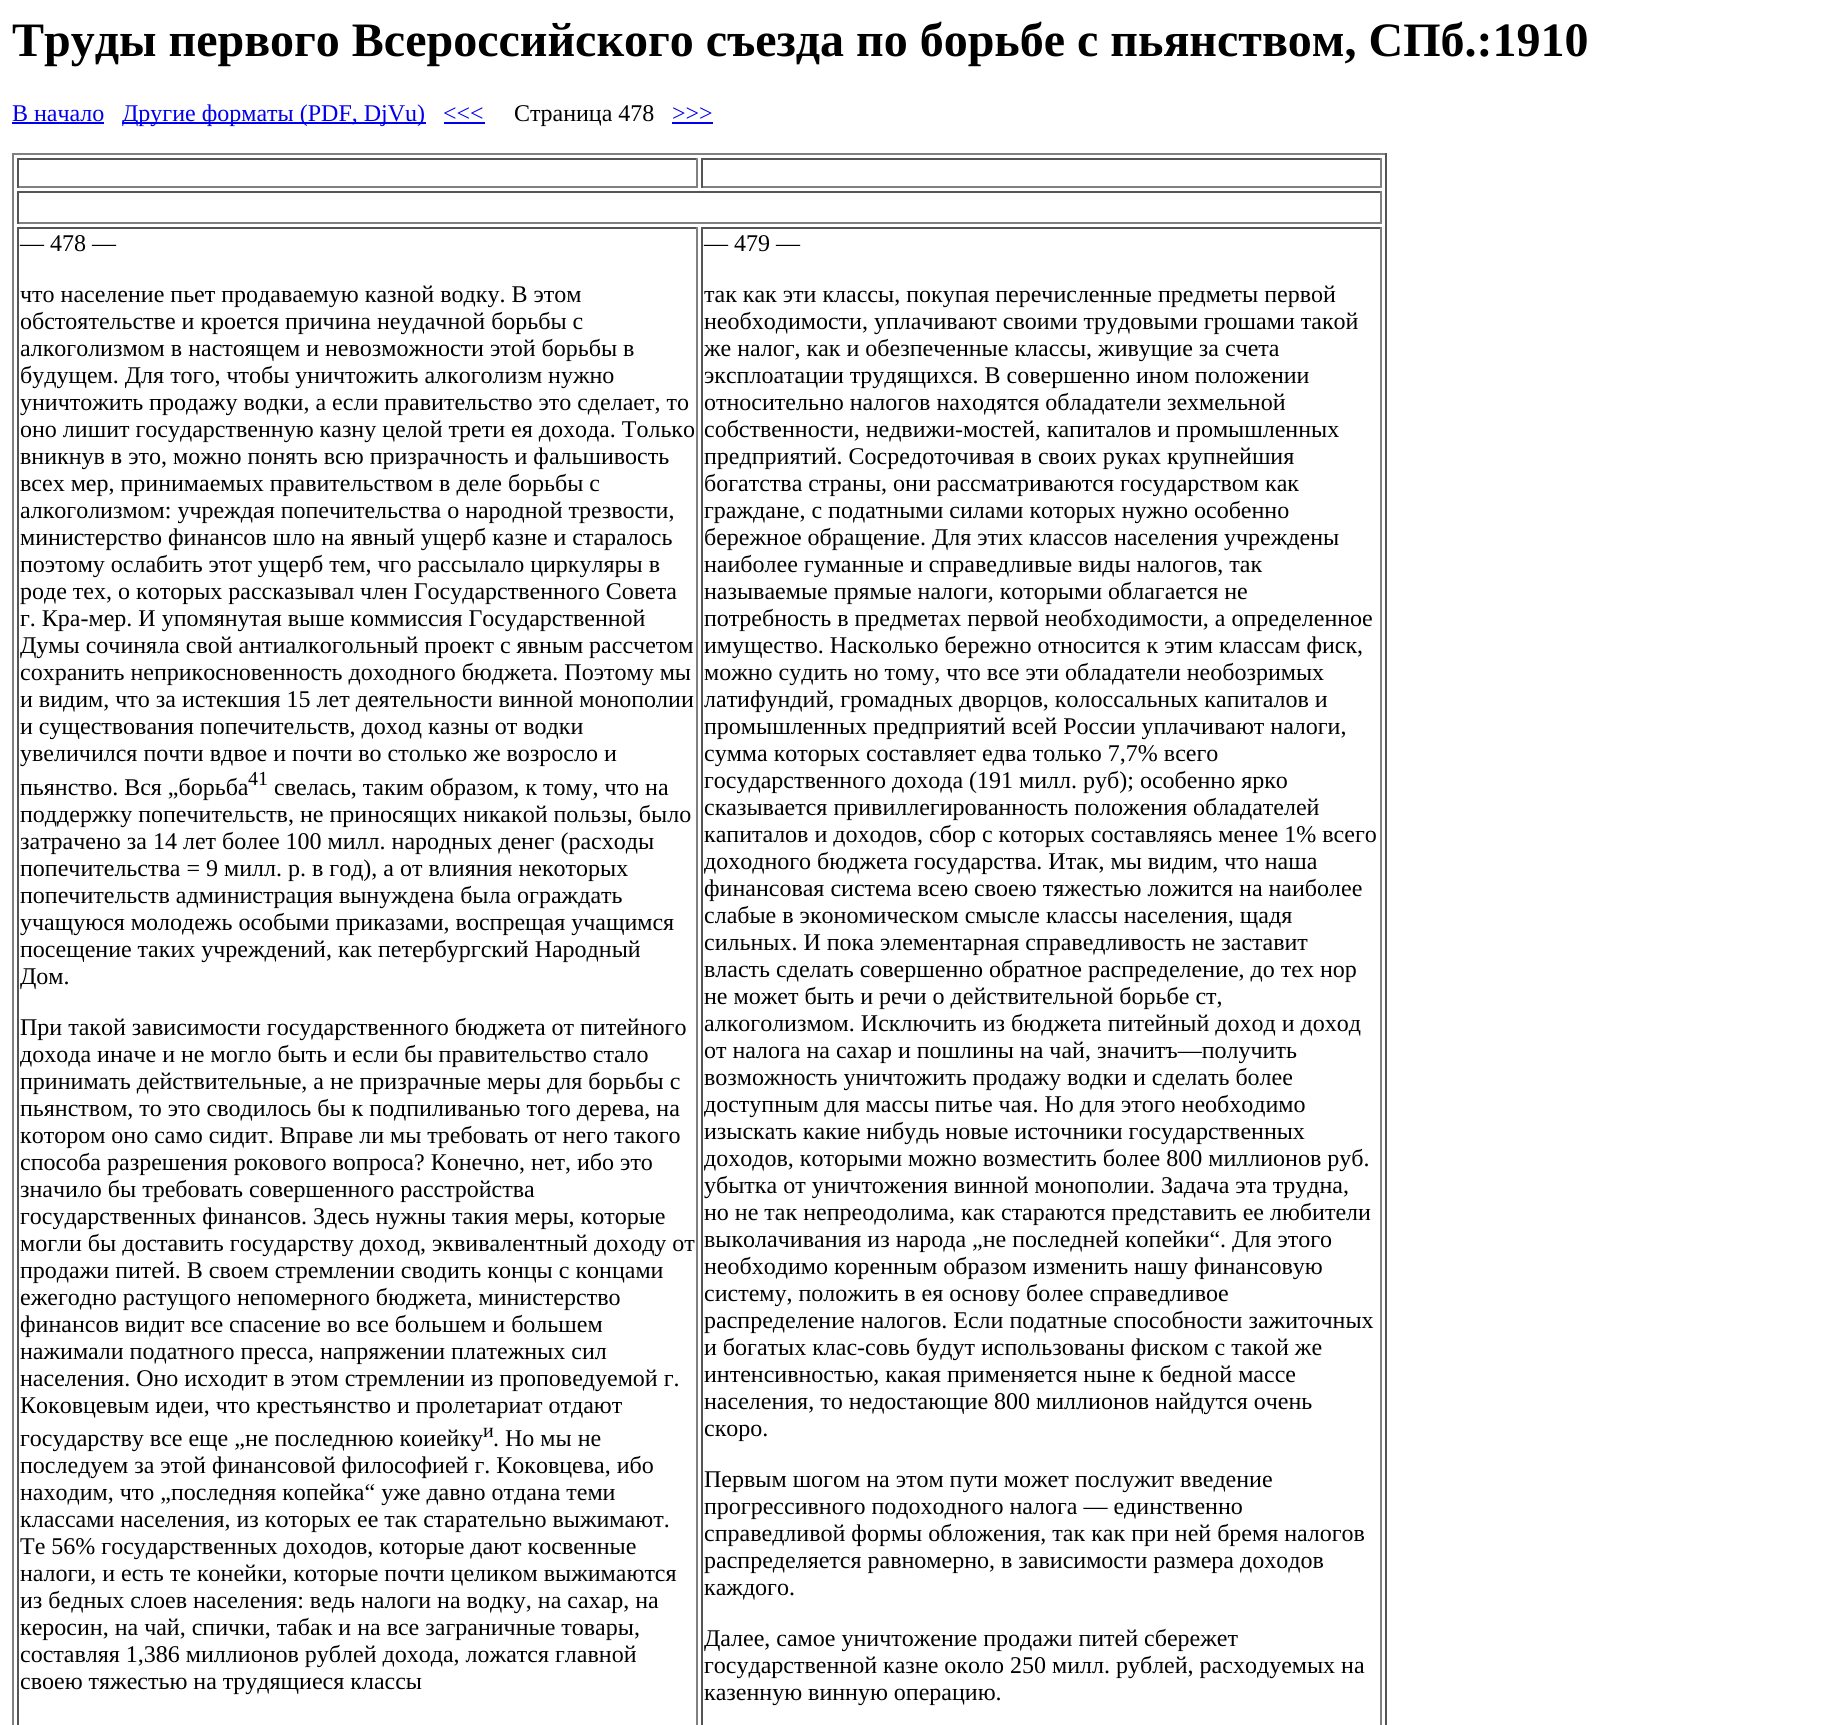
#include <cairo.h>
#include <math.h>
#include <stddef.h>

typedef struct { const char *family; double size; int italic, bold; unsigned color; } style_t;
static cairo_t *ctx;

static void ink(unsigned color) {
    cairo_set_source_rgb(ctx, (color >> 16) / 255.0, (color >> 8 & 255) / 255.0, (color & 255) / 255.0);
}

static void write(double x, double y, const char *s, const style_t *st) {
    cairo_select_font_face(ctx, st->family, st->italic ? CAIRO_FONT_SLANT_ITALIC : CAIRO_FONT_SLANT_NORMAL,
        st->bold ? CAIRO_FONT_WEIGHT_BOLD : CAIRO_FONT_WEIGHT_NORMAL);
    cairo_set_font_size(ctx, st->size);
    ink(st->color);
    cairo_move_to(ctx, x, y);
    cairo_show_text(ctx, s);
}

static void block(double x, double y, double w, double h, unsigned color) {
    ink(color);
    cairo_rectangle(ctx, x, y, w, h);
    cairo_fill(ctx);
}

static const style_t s1 = {"Liberation Serif", 48, 0, 1, 0x000000};
static const style_t s2 = {"Liberation Serif", 24, 0, 0, 0x0000ee};
static const style_t s3 = {"Liberation Serif", 24, 0, 0, 0x000000};
static const style_t s4 = {"Liberation Serif", 20, 0, 0, 0x000000};

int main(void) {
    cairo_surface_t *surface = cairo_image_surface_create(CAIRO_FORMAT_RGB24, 1822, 1725);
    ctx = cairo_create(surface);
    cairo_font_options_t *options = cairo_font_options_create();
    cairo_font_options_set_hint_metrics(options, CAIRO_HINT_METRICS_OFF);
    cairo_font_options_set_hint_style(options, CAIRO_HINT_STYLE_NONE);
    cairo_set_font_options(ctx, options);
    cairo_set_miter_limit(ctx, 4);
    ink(0xffffff);
    cairo_paint(ctx);
    write(12, 56, "Труды первого Всероссийского съезда по борьбе с пьянством, СПб.:1910", &s1);
    write(12, 121, "В начало", &s2);
    block(12, 122, 92, 2, 0x0000ee);
    block(122, 122, 304, 2, 0x0000ee);
    write(122, 121, "Другие форматы (PDF, DjVu)", &s2);
    write(443, 121, "<<<", &s2);
    block(444, 122, 41, 2, 0x0000ee);
    write(514, 121, "Страница 478", &s3);
    write(672, 121, ">>>", &s2);
    block(672, 122, 41, 2, 0x0000ee);
    block(12, 153, 1374, 2, 0x808080);
    block(1385, 153, 2, 1572, 0x555555);
    block(12, 153, 2, 1572, 0x808080);
    block(17, 158, 681, 2, 0x555555);
    block(696, 158, 2, 30, 0x808080);
    block(17, 186, 681, 2, 0x808080);
    block(17, 158, 2, 30, 0x555555);
    block(701, 158, 681, 2, 0x555555);
    block(1380, 158, 2, 30, 0x808080);
    block(701, 186, 681, 2, 0x808080);
    block(701, 158, 2, 30, 0x555555);
    block(17, 191, 1365, 2, 0x555555);
    block(1380, 191, 2, 33, 0x808080);
    block(17, 222, 1365, 2, 0x808080);
    block(17, 191, 2, 33, 0x555555);
    block(17, 227, 681, 2, 0x555555);
    block(696, 227, 2, 1498, 0x808080);
    block(17, 227, 2, 1498, 0x555555);
    write(20, 251, "— 478 —", &s3);
    write(20, 302, "что население пьет продаваемую казной водку. В этом", &s3);
    write(20, 329, "обстоятельстве и кроется причина неудачной борьбы с", &s3);
    write(20, 356, "алкоголизмом в настоящем и невозможности этой борьбы в", &s3);
    write(20, 383, "будущем. Для того, чтобы уничтожить алкоголизм нужно", &s3);
    write(20, 410, "уничтожить продажу водки, а если правительство это сделает, то", &s3);
    write(20, 437, "оно лишит государственную казну целой трети ея дохода. Только", &s3);
    write(20, 464, "вникнув в это, можно понять всю призрачность и фальшивость", &s3);
    write(20, 491, "всех мер, принимаемых правительством в деле борьбы с", &s3);
    write(20, 518, "алкоголизмом: учреждая попечительства о народной трезвости,", &s3);
    write(20, 545, "министерство финансов шло на явный ущерб казне и старалось", &s3);
    write(20, 572, "поэтому ослабить этот ущерб тем, чго рассылало циркуляры в", &s3);
    write(20, 599, "роде тех, о которых рассказывал член Государственного Совета", &s3);
    write(20, 626, "г. Кра-мер. И упомянутая выше коммиссия Государственной", &s3);
    write(20, 653, "Думы сочиняла свой антиалкогольный проект с явным рассчетом", &s3);
    write(20, 680, "сохранить неприкосновенность доходного бюджета. Поэтому мы", &s3);
    write(20, 707, "и видим, что за истекшия 15 лет деятельности винной монополии", &s3);
    write(20, 734, "и существования попечительств, доход казны от водки", &s3);
    write(20, 761, "увеличился почти вдвое и почти во столько же возросло и", &s3);
    write(20, 795, "пьянство. Вся „борьба", &s3);
    write(248, 785, "41", &s4);
    write(274, 795, "свелась, таким образом, к тому, что на", &s3);
    write(20, 822, "поддержку попечительств, не приносящих никакой пользы, было", &s3);
    write(20, 849, "затрачено за 14 лет более 100 милл. народных денег (расходы", &s3);
    write(20, 876, "попечительства = 9 милл. р. в год), а от влияния некоторых", &s3);
    write(20, 903, "попечительств администрация вынуждена была ограждать", &s3);
    write(20, 930, "учащуюся молодежь особыми приказами, воспрещая учащимся", &s3);
    write(20, 957, "посещение таких учреждений, как петербургский Народный", &s3);
    write(20, 984, "Дом.", &s3);
    write(20, 1035, "При такой зависимости государственного бюджета от питейного", &s3);
    write(20, 1062, "дохода иначе и не могло быть и если бы правительство стало", &s3);
    write(20, 1089, "принимать действительные, а не призрачные меры для борьбы с", &s3);
    write(20, 1116, "пьянством, то это сводилось бы к подпиливанью того дерева, на", &s3);
    write(20, 1143, "котором оно само сидит. Вправе ли мы требовать от него такого", &s3);
    write(20, 1170, "способа разрешения рокового вопроса? Конечно, нет, ибо это", &s3);
    write(20, 1197, "значило бы требовать совершенного расстройства", &s3);
    write(20, 1224, "государственных финансов. Здесь нужны такия меры, которые", &s3);
    write(20, 1251, "могли бы доставить государству доход, эквивалентный доходу от", &s3);
    write(20, 1278, "продажи питей. В своем стремлении сводить концы с концами", &s3);
    write(20, 1305, "ежегодно растущого непомерного бюджета, министерство", &s3);
    write(20, 1332, "финансов видит все спасение во все большем и большем", &s3);
    write(20, 1359, "нажимали податного пресса, напряжении платежных сил", &s3);
    write(20, 1386, "населения. Оно исходит в этом стремлении из проповедуемой г.", &s3);
    write(20, 1413, "Коковцевым идеи, что крестьянство и пролетариат отдают", &s3);
    write(20, 1446, "государству все еще „не последнюю коиейку", &s3);
    write(483, 1437, "и", &s4);
    write(493, 1446, ". Но мы не", &s3);
    write(20, 1473, "последуем за этой финансовой философией г. Коковцева, ибо", &s3);
    write(20, 1500, "находим, что „последняя копейка“ уже давно отдана теми", &s3);
    write(20, 1527, "классами населения, из которых ее так старательно выжимают.", &s3);
    write(20, 1554, "Те 56% государственных доходов, которые дают косвенные", &s3);
    write(20, 1581, "налоги, и есть те конейки, которые почти целиком выжимаются", &s3);
    write(20, 1608, "из бедных слоев населения: ведь налоги на водку, на сахар, на", &s3);
    write(20, 1635, "керосин, на чай, спички, табак и на все заграничные товары,", &s3);
    write(20, 1662, "составляя 1,386 миллионов рублей дохода, ложатся главной", &s3);
    write(20, 1689, "своею тяжестью на трудящиеся классы", &s3);
    block(701, 227, 681, 2, 0x555555);
    block(1380, 227, 2, 1498, 0x808080);
    block(701, 227, 2, 1498, 0x555555);
    write(704, 251, "— 479 —", &s3);
    write(704, 302, "так как эти классы, покупая перечисленные предметы первой", &s3);
    write(704, 329, "необходимости, уплачивают своими трудовыми грошами такой", &s3);
    write(704, 356, "же налог, как и обезпеченные классы, живущие за счета", &s3);
    write(704, 383, "эксплоатации трудящихся. В совершенно ином положении", &s3);
    write(704, 410, "относительно налогов находятся обладатели зехмельной", &s3);
    write(704, 437, "собственности, недвижи-мостей, капиталов и промышленных", &s3);
    write(704, 464, "предприятий. Сосредоточивая в своих руках крупнейшия", &s3);
    write(704, 491, "богатства страны, они рассматриваются государством как", &s3);
    write(704, 518, "граждане, с податными силами которых нужно особенно", &s3);
    write(704, 545, "бережное обращение. Для этих классов населения учреждены", &s3);
    write(704, 572, "наиболее гуманные и справедливые виды налогов, так", &s3);
    write(704, 599, "называемые прямые налоги, которыми облагается не", &s3);
    write(704, 626, "потребность в предметах первой необходимости, а определенное", &s3);
    write(704, 653, "имущество. Насколько бережно относится к этим классам фиск,", &s3);
    write(704, 680, "можно судить но тому, что все эти обладатели необозримых", &s3);
    write(704, 707, "латифундий, громадных дворцов, колоссальных капиталов и", &s3);
    write(704, 734, "промышленных предприятий всей России уплачивают налоги,", &s3);
    write(704, 761, "сумма которых составляет едва только 7,7% всего", &s3);
    write(704, 788, "государственного дохода (191 милл. руб); особенно ярко", &s3);
    write(704, 815, "сказывается привиллегированность положения обладателей", &s3);
    write(704, 842, "капиталов и доходов, сбор с которых составляясь менее 1% всего", &s3);
    write(704, 869, "доходного бюджета государства. Итак, мы видим, что наша", &s3);
    write(704, 896, "финансовая система всею своею тяжестью ложится на наиболее", &s3);
    write(704, 923, "слабые в экономическом смысле классы населения, щадя", &s3);
    write(704, 950, "сильных. И пока элементарная справедливость не заставит", &s3);
    write(704, 977, "власть сделать совершенно обратное распределение, до тех нор", &s3);
    write(704, 1004, "не может быть и речи о действительной борьбе ст,", &s3);
    write(704, 1031, "алкоголизмом. Исключить из бюджета питейный доход и доход", &s3);
    write(704, 1058, "от налога на сахар и пошлины на чай, значитъ—получить", &s3);
    write(704, 1085, "возможность уничтожить продажу водки и сделать более", &s3);
    write(704, 1112, "доступным для массы питье чая. Но для этого необходимо", &s3);
    write(704, 1139, "изыскать какие нибудь новые источники государственных", &s3);
    write(704, 1166, "доходов, которыми можно возместить более 800 миллионов руб.", &s3);
    write(704, 1193, "убытка от уничтожения винной монополии. Задача эта трудна,", &s3);
    write(704, 1220, "но не так непреодолима, как стараются представить ее любители", &s3);
    write(704, 1247, "выколачивания из народа „не последней копейки“. Для этого", &s3);
    write(704, 1274, "необходимо коренным образом изменить нашу финансовую", &s3);
    write(704, 1301, "систему, положить в ея основу более справедливое", &s3);
    write(704, 1328, "распределение налогов. Если податные способности зажиточных", &s3);
    write(704, 1355, "и богатых клас-совь будут использованы фиском с такой же", &s3);
    write(704, 1382, "интенсивностью, какая применяется ныне к бедной массе", &s3);
    write(704, 1409, "населения, то недостающие 800 миллионов найдутся очень", &s3);
    write(704, 1436, "скоро.", &s3);
    write(704, 1487, "Первым шогом на этом пути может послужит введение", &s3);
    write(704, 1514, "прогрессивного подоходного налога — единственно", &s3);
    write(704, 1541, "справедливой формы обложения, так как при ней бремя налогов", &s3);
    write(704, 1568, "распределяется равномерно, в зависимости размера доходов", &s3);
    write(704, 1595, "каждого.", &s3);
    write(704, 1646, "Далее, самое уничтожение продажи питей сбережет", &s3);
    write(704, 1673, "государственной казне около 250 милл. рублей, расходуемых на", &s3);
    write(704, 1700, "казенную винную операцию.", &s3);
    cairo_surface_write_to_png(surface, "screenshot.png");
    cairo_font_options_destroy(options);
    cairo_destroy(ctx);
    cairo_surface_destroy(surface);
    return 0;
}
